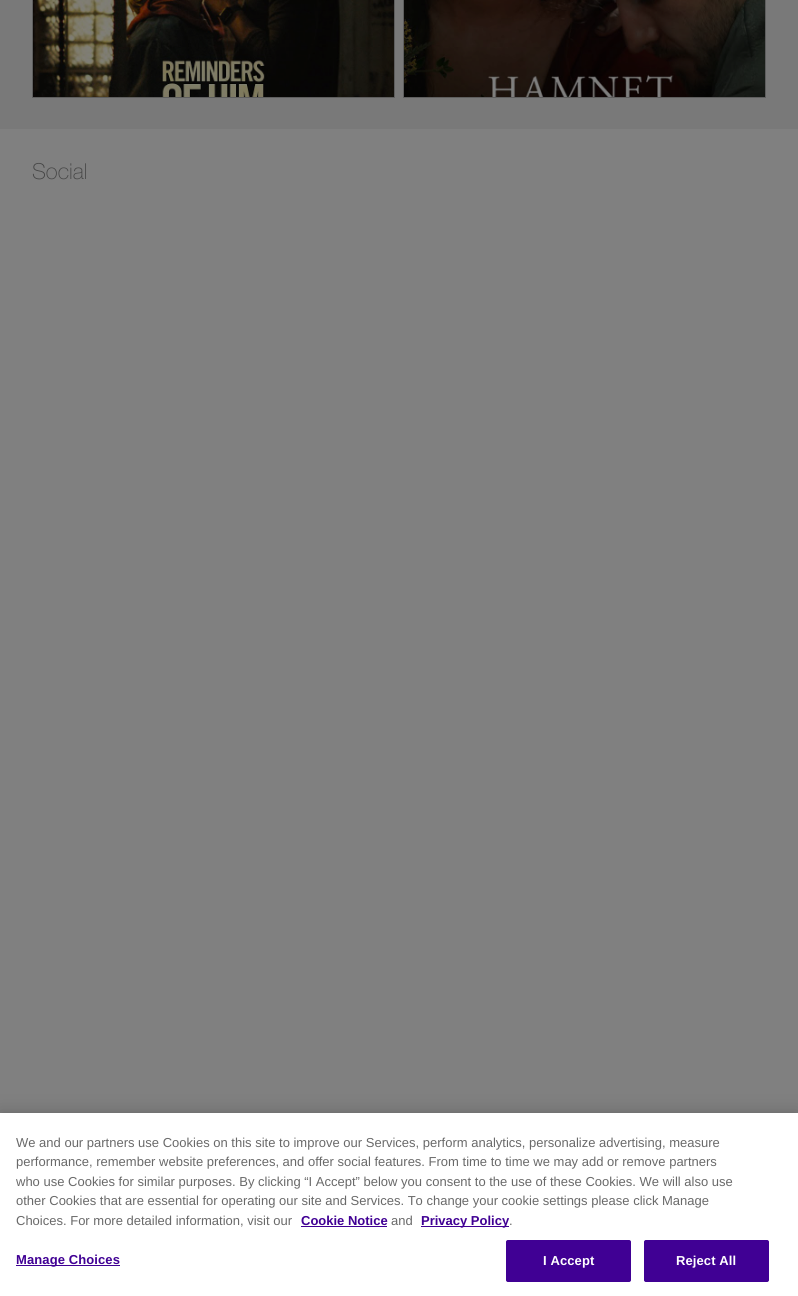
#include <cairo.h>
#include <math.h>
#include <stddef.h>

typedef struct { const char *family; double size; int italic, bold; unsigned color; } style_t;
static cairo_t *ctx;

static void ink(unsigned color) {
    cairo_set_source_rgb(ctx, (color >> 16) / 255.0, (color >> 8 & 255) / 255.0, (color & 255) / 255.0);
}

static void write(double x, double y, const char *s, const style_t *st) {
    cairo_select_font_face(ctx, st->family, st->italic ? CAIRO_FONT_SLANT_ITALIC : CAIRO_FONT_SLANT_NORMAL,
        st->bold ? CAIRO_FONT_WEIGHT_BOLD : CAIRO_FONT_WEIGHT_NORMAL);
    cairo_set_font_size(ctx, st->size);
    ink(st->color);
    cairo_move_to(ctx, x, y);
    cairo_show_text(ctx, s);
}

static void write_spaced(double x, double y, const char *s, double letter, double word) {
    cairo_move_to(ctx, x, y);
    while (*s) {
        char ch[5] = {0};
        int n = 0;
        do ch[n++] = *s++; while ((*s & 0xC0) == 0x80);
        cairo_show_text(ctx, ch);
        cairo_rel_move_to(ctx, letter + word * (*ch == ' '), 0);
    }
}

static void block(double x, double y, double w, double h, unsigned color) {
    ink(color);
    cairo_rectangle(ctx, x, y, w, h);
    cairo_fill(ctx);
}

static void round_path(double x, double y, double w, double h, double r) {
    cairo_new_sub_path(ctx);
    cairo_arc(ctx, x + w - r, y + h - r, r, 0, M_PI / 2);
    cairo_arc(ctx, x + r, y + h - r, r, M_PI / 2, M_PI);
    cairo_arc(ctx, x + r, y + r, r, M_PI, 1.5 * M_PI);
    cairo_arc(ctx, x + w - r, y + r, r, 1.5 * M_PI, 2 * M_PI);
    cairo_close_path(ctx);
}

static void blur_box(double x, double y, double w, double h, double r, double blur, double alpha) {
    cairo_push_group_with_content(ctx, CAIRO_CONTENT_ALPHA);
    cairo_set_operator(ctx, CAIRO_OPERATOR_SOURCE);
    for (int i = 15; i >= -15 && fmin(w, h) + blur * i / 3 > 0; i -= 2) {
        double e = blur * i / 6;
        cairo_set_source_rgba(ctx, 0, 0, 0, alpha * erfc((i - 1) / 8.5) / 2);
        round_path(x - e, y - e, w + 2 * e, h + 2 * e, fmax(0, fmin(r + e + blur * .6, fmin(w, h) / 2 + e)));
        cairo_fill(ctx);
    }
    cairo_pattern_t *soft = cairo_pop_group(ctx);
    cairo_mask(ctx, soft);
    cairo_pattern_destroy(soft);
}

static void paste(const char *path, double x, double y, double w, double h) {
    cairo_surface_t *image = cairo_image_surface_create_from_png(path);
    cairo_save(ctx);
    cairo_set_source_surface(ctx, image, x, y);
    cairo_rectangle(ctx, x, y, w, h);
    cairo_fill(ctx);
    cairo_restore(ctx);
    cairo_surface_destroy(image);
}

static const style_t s1 = {"Helvetica Neue ExtraLight", 22, 0, 0, 0x454545};
static const style_t s2 = {"Liberation Sans", 13, 0, 0, 0x696969};
static const style_t s3 = {"Liberation Sans", 13, 0, 1, 0x400094};

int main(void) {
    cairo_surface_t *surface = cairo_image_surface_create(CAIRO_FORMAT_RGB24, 798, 1296);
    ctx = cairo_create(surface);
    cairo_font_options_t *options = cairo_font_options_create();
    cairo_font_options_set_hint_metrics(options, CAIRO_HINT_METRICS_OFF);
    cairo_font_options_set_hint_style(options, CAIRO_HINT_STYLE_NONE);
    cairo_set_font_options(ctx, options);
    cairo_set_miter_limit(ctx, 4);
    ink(0x808080);
    cairo_paint(ctx);
    block(0, 0, 798, 129, 0x797979);
    cairo_rectangle(ctx, 32.5, -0.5, 362, 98);
    ink(0x5e5e5e);
    cairo_set_line_width(ctx, 1);
    cairo_stroke(ctx);
    paste("pic1.png", 33, 0, 361, 97);
    cairo_rectangle(ctx, 403.5, -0.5, 362, 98);
    cairo_stroke(ctx);
    paste("pic2.png", 404, 0, 361, 97);
    write(32, 179, "Social", &s1);
    ink(0x000000);
    blur_box(0, 1113, 798, 183, 0, 9, 0.2);
    block(0, 1113, 798, 183, 0xffffff);
    write(16, 1147, "We and our partners use Cookies on this site to improve our Services, perform analytics, personalize advertising, measure", &s2);
    write(16, 1166, "performance, remember website preferences, and offer social features. From time to time we may add or remove partners", &s2);
    write(16, 1186, "who use Cookies for similar purposes. By clicking “I Accept” below you consent to the use of these Cookies. We will also use", &s2);
    write(16, 1205, "other Cookies that are essential for operating our site and Services. To change your cookie settings please click Manage", &s2);
    write(16, 1225, "Choices. For more detailed information, visit our", &s2);
    write(301, 1225, "Cookie Notice", &s3);
    block(301, 1226, 86, 1, 0x400094);
    write(391, 1225, "and", &s2);
    block(421, 1226, 88, 1, 0x400094);
    write(421, 1225, "Privacy Policy", &s3);
    write(509, 1225, ".", &s2);
    block(16, 1265, 104, 1, 0x400094);
    cairo_select_font_face(ctx, "Liberation Sans", CAIRO_FONT_SLANT_NORMAL, CAIRO_FONT_WEIGHT_BOLD);
    write_spaced(16, 1264, "Manage Choices", 0.1, 0);
    round_path(506.5, 1240.5, 124, 41, 1.5);
    cairo_fill_preserve(ctx);
    cairo_stroke(ctx);
    ink(0xffffff);
    write_spaced(543, 1265, "I Accept", 0.1, 0);
    ink(0x400094);
    round_path(644.5, 1240.5, 124, 41, 1.5);
    cairo_fill_preserve(ctx);
    cairo_stroke(ctx);
    ink(0xffffff);
    write_spaced(676, 1265, "Reject All", 0.1, 0);
    cairo_surface_write_to_png(surface, "screenshot.png");
    cairo_font_options_destroy(options);
    cairo_destroy(ctx);
    cairo_surface_destroy(surface);
    return 0;
}
